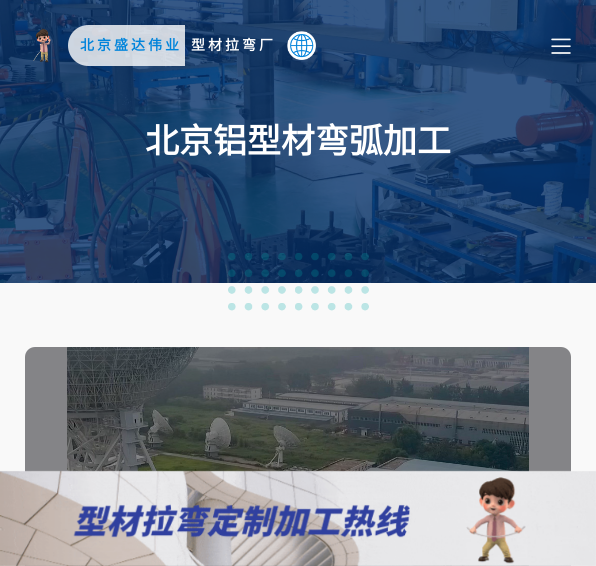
import math
import cairocffi as cairo

surface = cairo.ImageSurface(cairo.FORMAT_RGB24, 596, 566)
cr = cairo.Context(surface)
options = cairo.FontOptions()
options.set_hint_metrics(cairo.HINT_METRICS_OFF)
options.set_hint_style(cairo.HINT_STYLE_NONE)
cr.set_font_options(options)
cr.set_miter_limit(4)


def use_color(code):
    cr.set_source_rgb(*(v / 255 for v in bytes.fromhex(code[-6:])))


def spaced_text(x, y, s, letter, word):
    cr.move_to(x, y)
    for ch in s:
        cr.show_text(ch)
        cr.rel_move_to(letter + word * (ch == ' '), 0)


def round_rect(x, y, w, h, r):
    cr.new_sub_path()
    for i, (u, v) in enumerate([(x + w - r, y + h - r), (x + r, y + h - r), (x + r, y + r), (x + w - r, y + r)]):
        cr.arc(u, v, r, i * math.pi / 2, (i + 1) * math.pi / 2)
    cr.close_path()


def picture(path, x, y, w, h):
    cr.save()
    cr.set_source_surface(cairo.ImageSurface.create_from_png(path), x, y)
    cr.rectangle(x, y, w, h)
    cr.fill()
    cr.restore()


use_color("#f9f9f9")
cr.paint()
use_color("#022e68")
cr.rectangle(0, 0, 596, 283)
cr.fill()
picture("img4.png", 0, 0, 596, 283)
picture("img1.png", 33, 28, 18, 35)
cr.set_source_rgba(1, 1, 1, 0.8)
cr.new_path()
cr.move_to(88.5, 25)
cr.line_to(185, 25)
cr.line_to(185, 66)
cr.line_to(88.5, 66)
cr.curve_to(77, 66, 68, 57, 68, 45.5)
cr.curve_to(68, 34, 77, 25, 88.5, 25)
cr.close_path()
cr.fill()
cr.select_font_face("Noto Sans CJK SC", cairo.FONT_SLANT_NORMAL, cairo.FONT_WEIGHT_BOLD)
cr.set_font_size(14)
use_color("#0084db")
spaced_text(80, 50, "北京盛达伟业", 3, 0)
use_color("#ffffff")
spaced_text(191, 50, "型材拉弯厂", 3, 0)
picture("img2.png", 287, 31, 29, 29)
picture("img3.png", 551, 38, 20, 16)
cr.set_font_size(34)
cr.move_to(145, 153)
cr.show_text("北京铝型材弯弧加工")
picture("img5.png", 228, 253, 141, 58)
picture("img6.png", 67, 347, 462, 219)
cr.set_source_rgba(0.067, 0.067, 0.09, 0.5)
round_rect(25, 347, 546, 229, 10)
cr.fill()
picture("img7.png", 0, 470, 596, 96)
surface.write_to_png("result.png")
